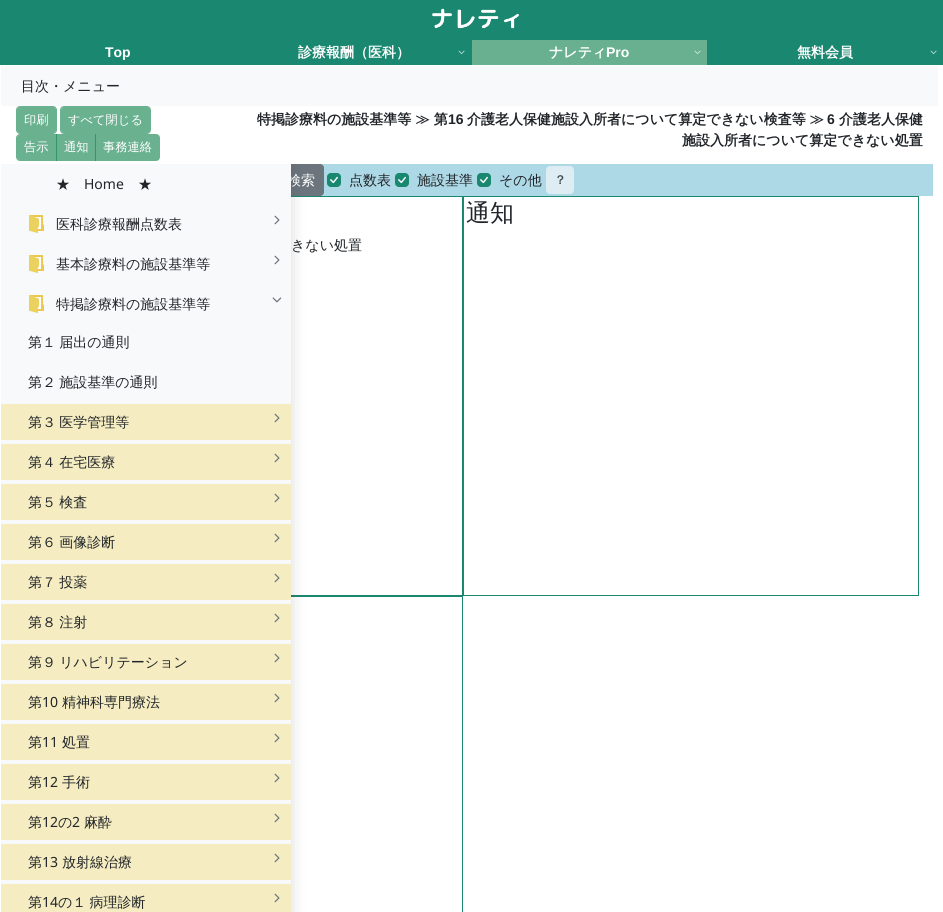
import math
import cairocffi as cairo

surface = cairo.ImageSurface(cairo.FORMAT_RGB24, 943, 912)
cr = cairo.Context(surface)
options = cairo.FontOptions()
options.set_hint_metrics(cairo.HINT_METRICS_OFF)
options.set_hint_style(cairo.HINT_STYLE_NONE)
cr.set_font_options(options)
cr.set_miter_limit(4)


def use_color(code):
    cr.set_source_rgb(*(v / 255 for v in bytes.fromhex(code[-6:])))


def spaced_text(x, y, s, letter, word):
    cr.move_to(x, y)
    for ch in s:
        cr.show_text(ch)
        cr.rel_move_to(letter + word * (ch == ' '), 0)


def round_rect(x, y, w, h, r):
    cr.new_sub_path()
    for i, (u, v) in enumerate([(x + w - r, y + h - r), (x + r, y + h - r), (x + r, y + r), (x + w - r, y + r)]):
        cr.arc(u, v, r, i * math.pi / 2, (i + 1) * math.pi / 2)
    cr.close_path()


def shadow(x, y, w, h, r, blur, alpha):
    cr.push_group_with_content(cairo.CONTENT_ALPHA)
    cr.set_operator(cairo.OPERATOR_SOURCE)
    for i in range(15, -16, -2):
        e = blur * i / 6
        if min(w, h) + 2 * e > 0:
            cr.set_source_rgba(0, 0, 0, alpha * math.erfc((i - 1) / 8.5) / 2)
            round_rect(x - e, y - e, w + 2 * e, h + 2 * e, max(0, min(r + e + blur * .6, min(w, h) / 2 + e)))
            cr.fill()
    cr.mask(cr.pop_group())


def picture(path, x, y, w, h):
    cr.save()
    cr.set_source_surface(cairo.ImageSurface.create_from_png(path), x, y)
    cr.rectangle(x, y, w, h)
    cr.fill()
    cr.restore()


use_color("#ffffff")
cr.paint()
use_color("#1a8870")
cr.rectangle(0, 0, 943, 65)
cr.fill()
picture("img1.png", 432, 8, 87, 21)
cr.select_font_face("Liberation Sans", cairo.FONT_SLANT_NORMAL, cairo.FONT_WEIGHT_BOLD)
cr.set_font_size(14)
use_color("#ffffff")
cr.move_to(105, 57)
cr.show_text("Top")
cr.select_font_face("WenQuanYi Zen Hei", cairo.FONT_SLANT_NORMAL, cairo.FONT_WEIGHT_BOLD)
cr.move_to(298, 57)
cr.show_text("診療報酬（医科）")
picture("img2.png", 458, 50, 7, 5)
use_color("#68b08f")
cr.rectangle(472, 40, 235, 25)
cr.fill()
use_color("#ffffff")
cr.move_to(549, 57)
cr.show_text("ナレティ")
cr.select_font_face("Liberation Sans", cairo.FONT_SLANT_NORMAL, cairo.FONT_WEIGHT_BOLD)
cr.move_to(606, 57)
cr.show_text("Pro")
picture("img3.png", 694, 50, 7, 5)
cr.select_font_face("WenQuanYi Zen Hei", cairo.FONT_SLANT_NORMAL, cairo.FONT_WEIGHT_BOLD)
cr.move_to(797, 57)
cr.show_text("無料会員")
picture("img2.png", 930, 50, 7, 5)
use_color("#f8f9fa")
cr.rectangle(1, 66, 937, 40)
cr.fill()
cr.select_font_face("WenQuanYi Zen Hei Medium")
use_color("#212529")
cr.move_to(21, 91)
cr.show_text("目次・メニュー")
use_color("#6ab190")
round_rect(17, 107, 39, 26, 2.5)
cr.fill()
round_rect(16.5, 106.5, 40, 27, 3.5)
cr.set_line_width(1)
cr.stroke()
cr.set_font_size(12.25)
use_color("#ffffff")
cr.move_to(24, 124)
cr.show_text("印刷")
use_color("#6ab190")
round_rect(61, 107, 89, 26, 2.5)
cr.fill()
round_rect(60.5, 106.5, 90, 27, 3.5)
cr.stroke()
use_color("#ffffff")
cr.move_to(68, 124)
cr.show_text("すべて閉じる")
use_color("#6ab190")
cr.new_path()
cr.move_to(19.5, 135)
cr.line_to(56, 135)
cr.line_to(56, 160)
cr.line_to(19.5, 160)
cr.curve_to(18, 160, 17, 159, 17, 157.5)
cr.line_to(17, 137.5)
cr.curve_to(17, 136, 18, 135, 19.5, 135)
cr.close_path()
cr.fill()
cr.new_path()
cr.move_to(20, 134.5)
cr.line_to(56.5, 134.5)
cr.line_to(56.5, 160.5)
cr.line_to(20, 160.5)
cr.curve_to(18, 160.5, 16.5, 159, 16.5, 157)
cr.line_to(16.5, 138)
cr.curve_to(16.5, 136, 18, 134.5, 20, 134.5)
cr.close_path()
cr.stroke()
use_color("#ffffff")
cr.move_to(24, 151)
cr.show_text("告示")
use_color("#6ab190")
cr.rectangle(57, 135, 38, 25)
cr.fill()
cr.rectangle(56.5, 134.5, 39, 26)
cr.set_source_rgba(0.098, 0.529, 0.329, 0.65)
cr.stroke()
use_color("#ffffff")
cr.move_to(64, 151)
cr.show_text("通知")
use_color("#6ab190")
cr.new_path()
cr.move_to(96, 135)
cr.line_to(156.5, 135)
cr.curve_to(158, 135, 159, 136, 159, 137.5)
cr.line_to(159, 157.5)
cr.curve_to(159, 159, 158, 160, 156.5, 160)
cr.line_to(96, 160)
cr.close_path()
cr.fill()
cr.new_path()
cr.move_to(95.5, 134.5)
cr.line_to(156, 134.5)
cr.curve_to(158, 134.5, 159.5, 136, 159.5, 138)
cr.line_to(159.5, 157)
cr.curve_to(159.5, 159, 158, 160.5, 156, 160.5)
cr.line_to(95.5, 160.5)
cr.close_path()
cr.set_source_rgba(0.098, 0.529, 0.329, 0.65)
cr.stroke()
use_color("#ffffff")
cr.move_to(103, 151)
cr.show_text("事務連絡")
cr.select_font_face("WenQuanYi Zen Hei", cairo.FONT_SLANT_NORMAL, cairo.FONT_WEIGHT_BOLD)
cr.set_font_size(14)
use_color("#212529")
cr.move_to(257, 124)
cr.show_text("特掲診療料の施設基準等 ≫ 第")
cr.select_font_face("Liberation Sans", cairo.FONT_SLANT_NORMAL, cairo.FONT_WEIGHT_BOLD)
cr.move_to(448, 124)
cr.show_text("16")
cr.select_font_face("WenQuanYi Zen Hei", cairo.FONT_SLANT_NORMAL, cairo.FONT_WEIGHT_BOLD)
cr.move_to(467, 124)
cr.show_text("介護老人保健施設入所者について算定できない検査等 ≫")
cr.select_font_face("Liberation Sans", cairo.FONT_SLANT_NORMAL, cairo.FONT_WEIGHT_BOLD)
cr.move_to(827, 124)
cr.show_text("6")
cr.select_font_face("WenQuanYi Zen Hei", cairo.FONT_SLANT_NORMAL, cairo.FONT_WEIGHT_BOLD)
cr.move_to(839, 124)
cr.show_text("介護老人保健")
cr.move_to(682, 145)
cr.show_text("施設入所者について算定できない処置")
use_color("#add8e6")
cr.rectangle(320, 164, 613, 32)
cr.fill()
use_color("#6c757d")
round_rect(278.5, 164.5, 45, 31, 3.5)
cr.fill_preserve()
cr.stroke()
cr.rectangle(6.5, 196.5, 456, 399)
use_color("#1a8870")
cr.stroke()
cr.rectangle(6.5, 596.5, 456, 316)
cr.stroke()
cr.save()
cr.rectangle(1, 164, 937, 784)
cr.clip()
use_color("#000000")
shadow(1, 165, 290, 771, 0, 8, 0.15)
cr.restore()
cr.select_font_face("WenQuanYi Zen Hei Medium")
use_color("#ffffff")
cr.move_to(287, 185)
cr.show_text("検索")
use_color("#f8f9fa")
cr.rectangle(1, 164, 290, 720)
cr.fill()
use_color("#212529")
cr.move_to(56, 189)
cr.show_text("★")
cr.select_font_face("Noto Sans")
cr.move_to(84, 189)
cr.show_text("Home")
cr.select_font_face("WenQuanYi Zen Hei Medium")
cr.move_to(138, 189)
cr.show_text("★")
picture("img4.png", 29, 215, 15, 18)
cr.move_to(56, 229)
cr.show_text("医科診療報酬点数表")
picture("img5.png", 274, 215, 6, 10)
picture("img4.png", 29, 255, 15, 18)
cr.move_to(56, 269)
cr.show_text("基本診療料の施設基準等")
picture("img5.png", 274, 255, 6, 10)
picture("img4.png", 29, 295, 15, 18)
cr.move_to(56, 309)
cr.show_text("特掲診療料の施設基準等")
picture("img6.png", 272, 297, 10, 6)
spaced_text(28, 347, "第１ 届出の通則", 0, -1)
spaced_text(28, 387, "第２ 施設基準の通則", 0, -1)
use_color("#f5ecc1")
cr.rectangle(1, 404, 290, 36)
cr.fill()
use_color("#212529")
spaced_text(28, 427, "第３ 医学管理等", 0, -1)
picture("img7.png", 274, 413, 6, 10)
use_color("#f5ecc1")
cr.rectangle(1, 444, 290, 36)
cr.fill()
use_color("#212529")
spaced_text(28, 467, "第４ 在宅医療", 0, -1)
picture("img7.png", 274, 453, 6, 10)
use_color("#f5ecc1")
cr.rectangle(1, 484, 290, 36)
cr.fill()
use_color("#212529")
spaced_text(28, 507, "第５ 検査", 0, -1)
picture("img7.png", 274, 493, 6, 10)
use_color("#f5ecc1")
cr.rectangle(1, 524, 290, 36)
cr.fill()
use_color("#212529")
spaced_text(28, 547, "第６ 画像診断", 0, -1)
picture("img7.png", 274, 533, 6, 10)
use_color("#f5ecc1")
cr.rectangle(1, 564, 290, 36)
cr.fill()
use_color("#212529")
spaced_text(28, 587, "第７ 投薬", 0, -1)
picture("img7.png", 274, 573, 6, 10)
use_color("#f5ecc1")
cr.rectangle(1, 604, 290, 36)
cr.fill()
use_color("#212529")
spaced_text(28, 627, "第８ 注射", 0, -1)
picture("img7.png", 274, 613, 6, 10)
use_color("#f5ecc1")
cr.rectangle(1, 644, 290, 36)
cr.fill()
use_color("#212529")
spaced_text(28, 667, "第９ リハビリテーション", 0, -1)
picture("img7.png", 274, 653, 6, 10)
use_color("#f5ecc1")
cr.rectangle(1, 684, 290, 36)
cr.fill()
use_color("#212529")
cr.move_to(28, 707)
cr.show_text("第")
cr.select_font_face("Noto Sans")
cr.move_to(42, 707)
cr.show_text("10")
cr.select_font_face("WenQuanYi Zen Hei Medium")
cr.move_to(62, 707)
cr.show_text("精神科専門療法")
picture("img7.png", 274, 693, 6, 10)
use_color("#f5ecc1")
cr.rectangle(1, 724, 290, 36)
cr.fill()
use_color("#212529")
cr.move_to(28, 747)
cr.show_text("第")
cr.select_font_face("Noto Sans")
cr.move_to(42, 747)
cr.show_text("11")
cr.select_font_face("WenQuanYi Zen Hei Medium")
cr.move_to(62, 747)
cr.show_text("処置")
picture("img7.png", 274, 733, 6, 10)
use_color("#f5ecc1")
cr.rectangle(1, 764, 290, 36)
cr.fill()
use_color("#212529")
cr.move_to(28, 787)
cr.show_text("第")
cr.select_font_face("Noto Sans")
cr.move_to(42, 787)
cr.show_text("12")
cr.select_font_face("WenQuanYi Zen Hei Medium")
cr.move_to(62, 787)
cr.show_text("手術")
picture("img7.png", 274, 773, 6, 10)
use_color("#f5ecc1")
cr.rectangle(1, 804, 290, 36)
cr.fill()
use_color("#212529")
cr.move_to(28, 827)
cr.show_text("第")
cr.select_font_face("Noto Sans")
cr.move_to(42, 827)
cr.show_text("12")
cr.select_font_face("WenQuanYi Zen Hei Medium")
cr.move_to(58, 827)
cr.show_text("の")
cr.select_font_face("Noto Sans")
cr.move_to(72, 827)
cr.show_text("2")
cr.select_font_face("WenQuanYi Zen Hei Medium")
cr.move_to(84, 827)
cr.show_text("麻酔")
picture("img7.png", 274, 813, 6, 10)
use_color("#f5ecc1")
cr.rectangle(1, 844, 290, 36)
cr.fill()
use_color("#212529")
cr.move_to(28, 867)
cr.show_text("第")
cr.select_font_face("Noto Sans")
cr.move_to(42, 867)
cr.show_text("13")
cr.select_font_face("WenQuanYi Zen Hei Medium")
cr.move_to(62, 867)
cr.show_text("放射線治療")
picture("img7.png", 274, 853, 6, 10)
use_color("#f5ecc1")
cr.rectangle(1, 884, 290, 28)
cr.fill()
use_color("#212529")
cr.move_to(28, 907)
cr.show_text("第")
cr.select_font_face("Noto Sans")
cr.move_to(42, 907)
cr.show_text("14")
cr.select_font_face("WenQuanYi Zen Hei Medium")
spaced_text(58, 907, "の１ 病理診断", 0, -1)
picture("img7.png", 274, 893, 6, 10)
use_color("#1a8870")
round_rect(327.5, 173.5, 13, 13, 3.5)
cr.fill_preserve()
cr.stroke()
picture("img8.png", 330, 176, 8, 8)
use_color("#212529")
cr.move_to(349, 185)
cr.show_text("点数表")
use_color("#1a8870")
round_rect(395.5, 173.5, 13, 13, 3.5)
cr.fill_preserve()
cr.stroke()
picture("img8.png", 398, 176, 8, 8)
use_color("#212529")
cr.move_to(417, 185)
cr.show_text("施設基準")
use_color("#1a8870")
round_rect(477.5, 173.5, 13, 13, 3.5)
cr.fill_preserve()
cr.stroke()
picture("img8.png", 480, 176, 8, 8)
use_color("#212529")
cr.move_to(499, 185)
cr.show_text("その他")
use_color("#deedf3")
round_rect(547, 167, 26, 26, 2.5)
cr.fill()
round_rect(546.5, 166.5, 27, 27, 3.5)
cr.stroke()
cr.select_font_face("WenQuanYi Zen Hei", cairo.FONT_SLANT_NORMAL, cairo.FONT_WEIGHT_BOLD)
cr.set_font_size(12.25)
use_color("#3d4c51")
cr.move_to(554, 184)
cr.show_text("？")
cr.rectangle(463.5, 196.5, 455, 399)
use_color("#1a8870")
cr.stroke()
cr.select_font_face("WenQuanYi Zen Hei Medium")
cr.set_font_size(24)
use_color("#212529")
cr.move_to(466, 221)
cr.show_text("通知")
cr.set_font_size(14)
cr.move_to(291, 250)
cr.show_text("きない処置")
surface.write_to_png("result.png")
